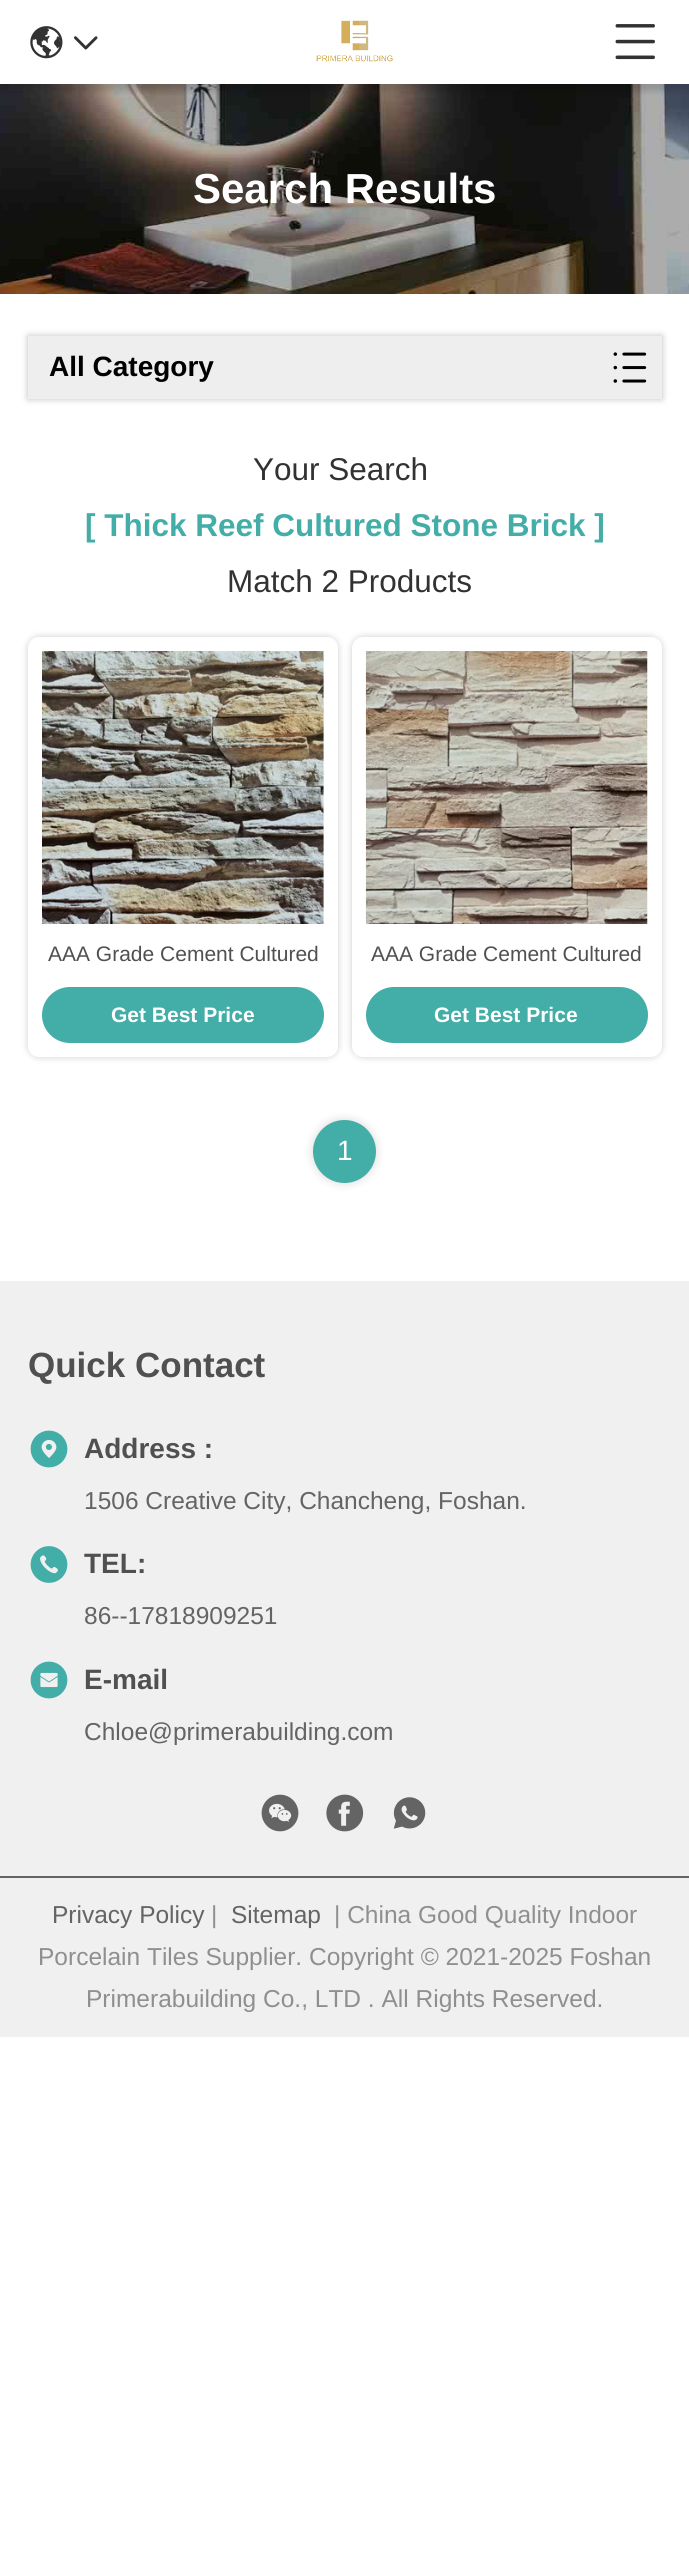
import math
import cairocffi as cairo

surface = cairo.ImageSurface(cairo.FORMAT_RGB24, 689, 2574)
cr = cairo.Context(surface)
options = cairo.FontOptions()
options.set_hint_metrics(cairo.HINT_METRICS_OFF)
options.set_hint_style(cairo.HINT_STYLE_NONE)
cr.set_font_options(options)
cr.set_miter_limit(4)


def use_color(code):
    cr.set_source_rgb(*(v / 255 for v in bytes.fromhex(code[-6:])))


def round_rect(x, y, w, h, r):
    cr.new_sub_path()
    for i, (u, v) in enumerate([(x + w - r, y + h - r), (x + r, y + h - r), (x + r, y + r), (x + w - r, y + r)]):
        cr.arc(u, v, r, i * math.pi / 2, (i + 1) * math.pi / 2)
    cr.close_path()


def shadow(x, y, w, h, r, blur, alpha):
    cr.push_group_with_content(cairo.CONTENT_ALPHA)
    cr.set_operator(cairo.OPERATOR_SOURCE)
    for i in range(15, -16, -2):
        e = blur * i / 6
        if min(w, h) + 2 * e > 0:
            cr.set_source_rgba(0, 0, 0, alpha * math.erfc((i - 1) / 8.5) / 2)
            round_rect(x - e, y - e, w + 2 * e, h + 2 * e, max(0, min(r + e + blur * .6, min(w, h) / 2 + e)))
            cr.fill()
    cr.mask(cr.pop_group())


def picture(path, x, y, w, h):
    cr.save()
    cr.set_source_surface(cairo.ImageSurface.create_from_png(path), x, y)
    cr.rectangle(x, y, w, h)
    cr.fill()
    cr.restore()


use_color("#ffffff")
cr.paint()
picture("img5.png", 0, 84, 689, 210)
cr.save()
cr.rectangle(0, 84, 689, 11)
cr.clip()
use_color("#000000")
shadow(0, 7, 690, 84, 0, 3.5, 0.15)
cr.restore()
picture("img1.png", 30, 26, 33, 33)
picture("img2.png", 74, 36, 24, 14)
picture("img3.png", 316, 20, 77, 42)
picture("img4.png", 615, 24, 40, 36)
cr.select_font_face("Liberation Sans", cairo.FONT_SLANT_NORMAL, cairo.FONT_WEIGHT_BOLD)
cr.set_font_size(42)
use_color("#ffffff")
cr.move_to(193, 203)
cr.show_text("Search Results")
use_color("#000000")
shadow(28, 336, 634, 63, 0, 3.5, 0.25)
use_color("#eeeeee")
cr.rectangle(28, 336, 634, 63)
cr.fill()
cr.set_font_size(28)
use_color("#000000")
cr.move_to(49, 376)
cr.show_text("All Category")
picture("img6.png", 613, 352, 34, 31)
cr.select_font_face("Liberation Sans")
cr.set_font_size(31.5)
use_color("#323232")
cr.move_to(253, 480)
cr.show_text("Your Search")
cr.select_font_face("Liberation Sans", cairo.FONT_SLANT_NORMAL, cairo.FONT_WEIGHT_BOLD)
use_color("#43ada7")
cr.move_to(85, 536)
cr.show_text("[ Thick Reef Cultured Stone Brick ]")
cr.select_font_face("Liberation Sans")
use_color("#323232")
cr.move_to(227, 592)
cr.show_text("Match 2 Products")
use_color("#000000")
shadow(28, 637, 310, 420, 11, 3.5, 0.2)
use_color("#ffffff")
round_rect(28, 637, 310, 420, 11)
cr.fill()
picture("img7.png", 42, 651, 282, 273)
cr.set_font_size(21)
use_color("#505050")
cr.move_to(48, 961)
cr.show_text("AAA Grade Cement Cultured")
use_color("#43ada7")
round_rect(44, 989, 278, 52, 26)
cr.fill_preserve()
cr.set_line_width(4)
cr.stroke()
cr.select_font_face("Liberation Sans", cairo.FONT_SLANT_NORMAL, cairo.FONT_WEIGHT_BOLD)
use_color("#ffffff")
cr.move_to(111, 1022)
cr.show_text("Get Best Price")
use_color("#000000")
shadow(352, 637, 310, 420, 11, 3.5, 0.2)
use_color("#ffffff")
round_rect(352, 637, 310, 420, 11)
cr.fill()
picture("img8.png", 365, 651, 283, 273)
cr.select_font_face("Liberation Sans")
use_color("#505050")
cr.move_to(371, 961)
cr.show_text("AAA Grade Cement Cultured")
use_color("#43ada7")
round_rect(368, 989, 278, 52, 26)
cr.fill_preserve()
cr.stroke()
cr.select_font_face("Liberation Sans", cairo.FONT_SLANT_NORMAL, cairo.FONT_WEIGHT_BOLD)
use_color("#ffffff")
cr.move_to(434, 1022)
cr.show_text("Get Best Price")
use_color("#000000")
shadow(313, 1120, 63, 63, 31.5, 5, 0.15)
use_color("#43ada7")
cr.arc(344.5, 1151.5, 31.5, 0, 2 * math.pi)
cr.fill()
cr.select_font_face("Liberation Sans")
cr.set_font_size(28)
use_color("#ffffff")
cr.move_to(337, 1160)
cr.show_text("1")
use_color("#f0f0f0")
cr.rectangle(0, 1281, 689, 756)
cr.fill()
cr.select_font_face("Liberation Sans", cairo.FONT_SLANT_NORMAL, cairo.FONT_WEIGHT_BOLD)
cr.set_font_size(35)
use_color("#505050")
cr.move_to(28, 1377)
cr.show_text("Quick Contact")
picture("img9.png", 30, 1430, 38, 38)
cr.set_font_size(28)
cr.move_to(84, 1458)
cr.show_text("Address :")
cr.select_font_face("Liberation Sans")
cr.set_font_size(24.5)
use_color("#646464")
cr.move_to(84, 1509)
cr.show_text("1506 Creative City, Chancheng, Foshan.")
picture("img10.png", 30, 1546, 38, 37)
cr.select_font_face("Liberation Sans", cairo.FONT_SLANT_NORMAL, cairo.FONT_WEIGHT_BOLD)
cr.set_font_size(28)
use_color("#505050")
cr.move_to(84, 1573)
cr.show_text("TEL:")
cr.select_font_face("Liberation Sans")
cr.set_font_size(24.5)
use_color("#646464")
cr.move_to(84, 1624)
cr.show_text("86--17818909251")
picture("img11.png", 30, 1661, 38, 38)
cr.select_font_face("Liberation Sans", cairo.FONT_SLANT_NORMAL, cairo.FONT_WEIGHT_BOLD)
cr.set_font_size(28)
use_color("#505050")
cr.move_to(84, 1689)
cr.show_text("E-mail")
cr.select_font_face("Liberation Sans")
cr.set_font_size(24.5)
use_color("#646464")
cr.move_to(84, 1740)
cr.show_text("Chloe@primerabuilding.com")
picture("img12.png", 261, 1794, 38, 38)
picture("img13.png", 326, 1794, 38, 38)
picture("img14.png", 393, 1797, 33, 32)
cr.rectangle(0, 1876, 689, 2)
cr.fill()
cr.move_to(52, 1923)
cr.show_text("Privacy Policy")
use_color("#8f8f8f")
cr.move_to(211, 1923)
cr.show_text("|")
use_color("#646464")
cr.move_to(231, 1923)
cr.show_text("Sitemap")
use_color("#8f8f8f")
cr.move_to(334, 1923)
cr.show_text("| China Good Quality Indoor")
cr.move_to(38, 1965)
cr.show_text("Porcelain Tiles Supplier. Copyright © 2021-2025 Foshan")
cr.move_to(86, 2007)
cr.show_text("Primerabuilding Co., LTD . All Rights Reserved.")
surface.write_to_png("result.png")
